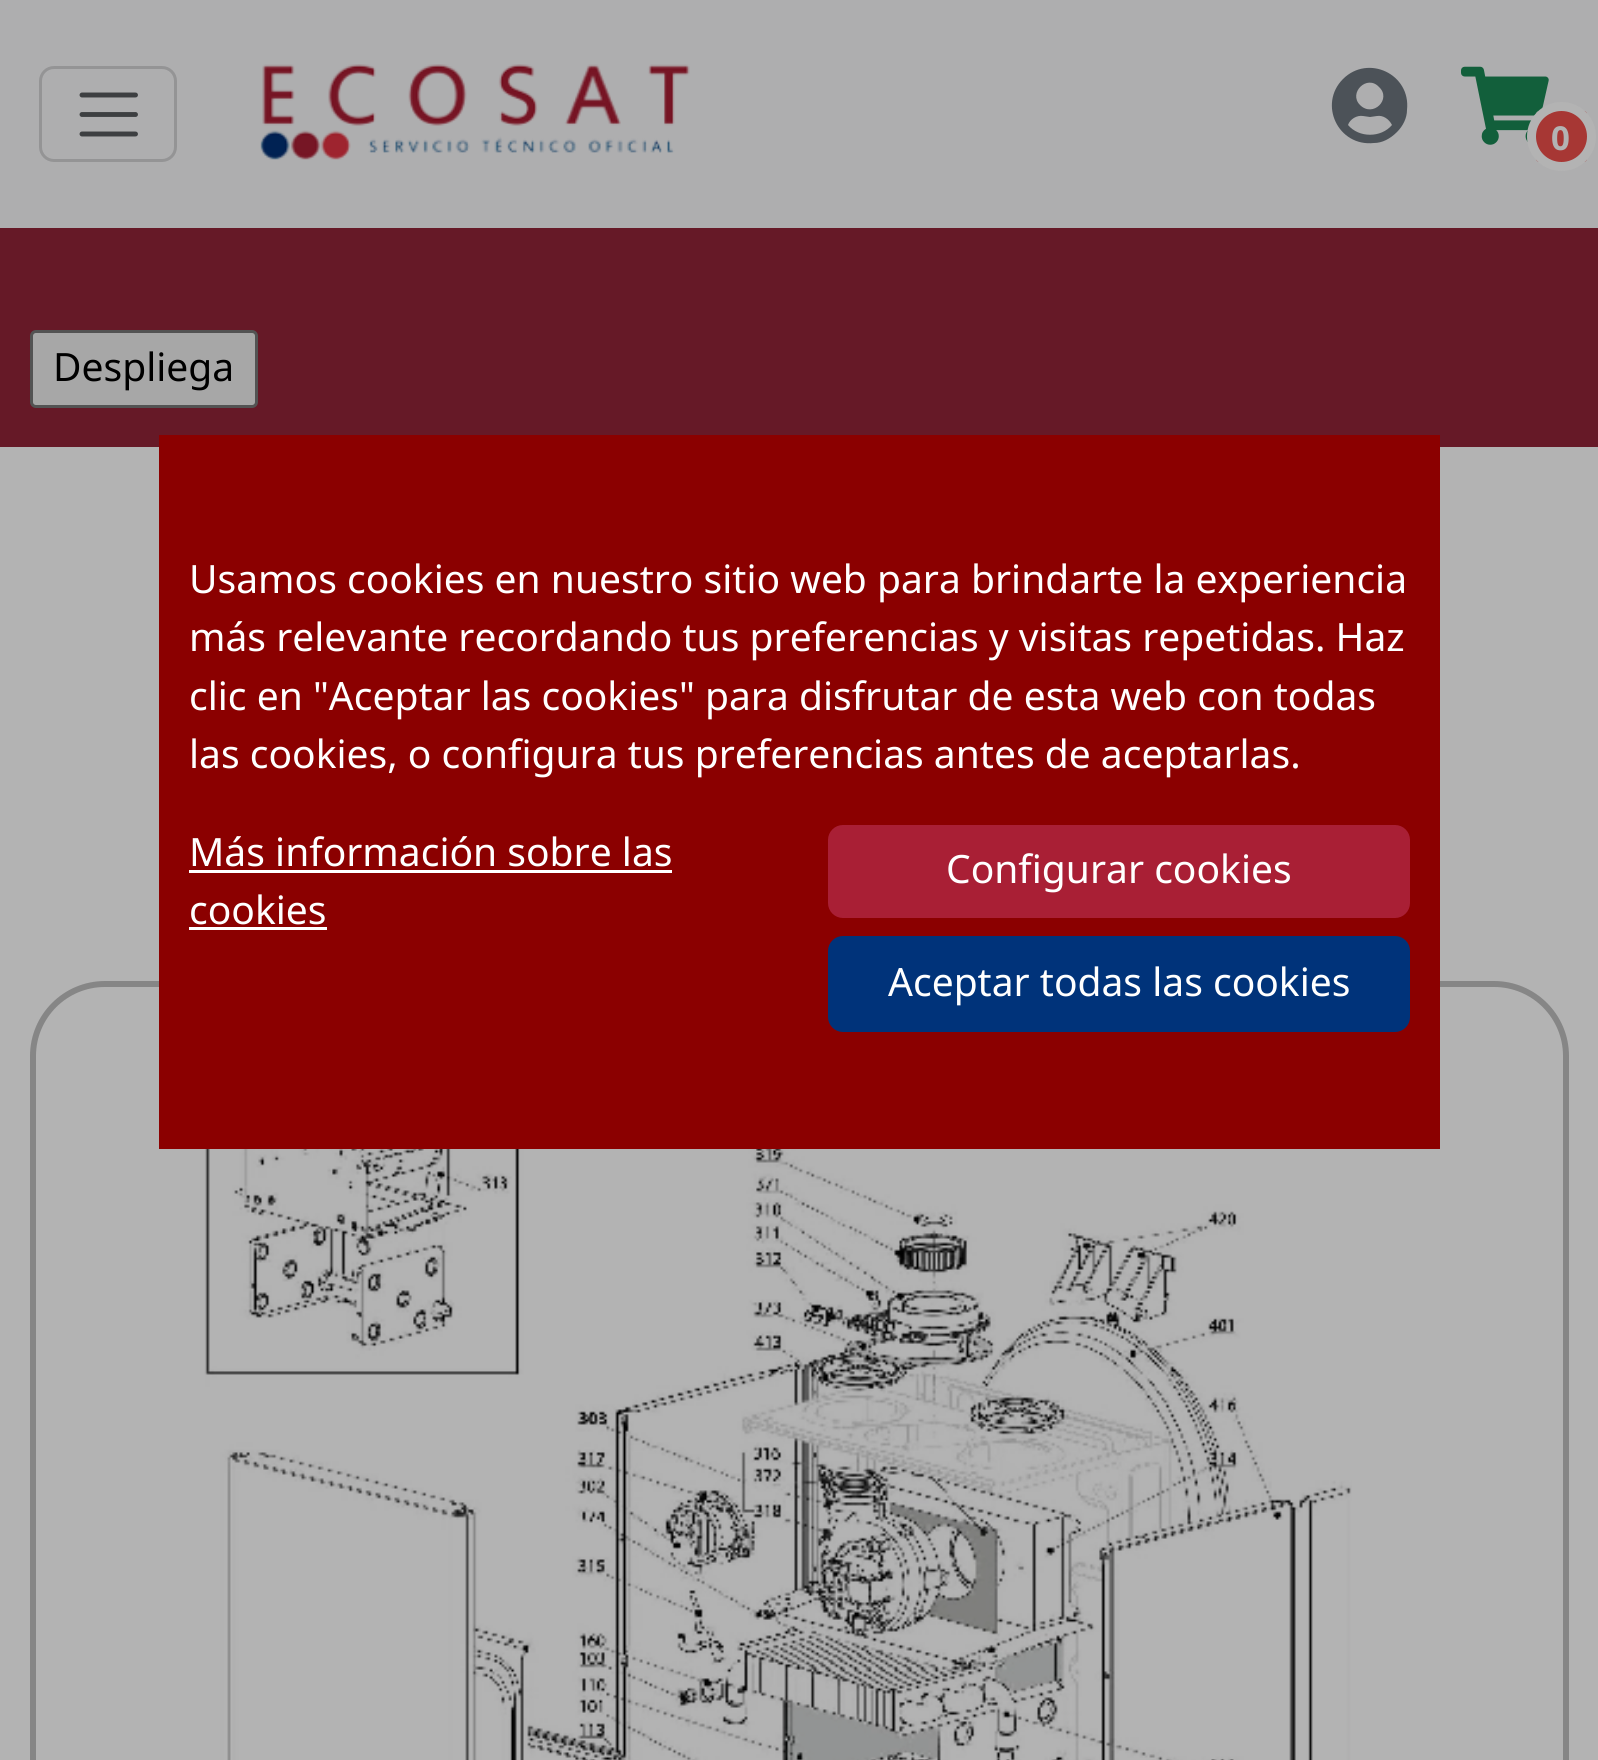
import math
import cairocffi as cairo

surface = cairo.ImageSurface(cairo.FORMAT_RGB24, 1598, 1760)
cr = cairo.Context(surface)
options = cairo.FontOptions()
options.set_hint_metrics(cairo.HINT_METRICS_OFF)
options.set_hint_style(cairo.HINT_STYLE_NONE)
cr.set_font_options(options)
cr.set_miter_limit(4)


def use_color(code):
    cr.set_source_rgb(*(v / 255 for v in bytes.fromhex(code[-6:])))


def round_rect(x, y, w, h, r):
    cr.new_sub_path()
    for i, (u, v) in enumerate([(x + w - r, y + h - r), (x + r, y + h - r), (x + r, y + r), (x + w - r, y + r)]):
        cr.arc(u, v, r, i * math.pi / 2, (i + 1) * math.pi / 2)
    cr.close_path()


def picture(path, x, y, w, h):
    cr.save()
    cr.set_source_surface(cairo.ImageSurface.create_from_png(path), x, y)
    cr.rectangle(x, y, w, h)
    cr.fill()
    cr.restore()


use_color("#b3b3b3")
cr.paint()
use_color("#aeaeaf")
cr.rectangle(0, 0, 1598, 228)
cr.fill()
round_rect(40.5, 67.5, 135, 93, 13.5)
use_color("#949495")
cr.set_line_width(3)
cr.stroke()
cr.new_path()
cr.move_to(82, 95)
cr.line_to(135.5, 95)
cr.move_to(82, 114.5)
cr.line_to(135.5, 114.5)
cr.move_to(82, 134)
cr.line_to(135.5, 134)
use_color("#3d3f41")
cr.set_line_width(4.9)
cr.set_line_cap(cairo.LINE_CAP_ROUND)
cr.stroke()
picture("img1.png", 260, 64, 430, 96)
use_color("#4c5258")
cr.new_path()
cr.move_to(1343, 79)
cr.curve_to(1368, 54, 1411, 74, 1407, 110)
cr.curve_to(1407, 118, 1403, 126, 1397, 132)
cr.curve_to(1390, 139, 1382, 143, 1374, 143)
cr.curve_to(1338, 147, 1318, 104, 1343, 79)
cr.close_path()
cr.move_to(1379, 87)
cr.curve_to(1367, 74, 1348, 93, 1360, 105)
cr.curve_to(1373, 118, 1392, 99, 1379, 87)
cr.close_path()
cr.move_to(1348, 125)
cr.curve_to(1359, 138, 1381, 138, 1392, 125)
cr.curve_to(1389, 119, 1383, 115, 1377, 116)
cr.line_to(1370, 117)
cr.line_to(1363, 116)
cr.curve_to(1357, 115, 1350, 119, 1348, 125)
cr.close_path()
cr.fill()
picture("img2.png", 1461, 66, 88, 79)
cr.save()
round_rect(1527, 102, 69, 69, 34.5)
cr.clip()
gradient = cairo.RadialGradient(1562, 137, 0, 1562, 137, 36)
gradient.add_color_stop_rgba(0.01, 0.655, 0.216, 0.204, 1)
gradient.add_color_stop_rgba(0.98, 0.655, 0.216, 0.204, 1)
gradient.add_color_stop_rgba(0.98, 0.702, 0.702, 0.702, 1)
cr.set_source(gradient)
cr.rectangle(1536, 111, 51, 51)
cr.fill()
cr.restore()
cr.arc(1561.5, 136.5, 30, 0, 2 * math.pi)
use_color("#b3b3b3")
cr.set_line_width(9)
cr.set_line_cap(cairo.LINE_CAP_BUTT)
cr.stroke()
cr.select_font_face("Noto Sans", cairo.FONT_SLANT_NORMAL, cairo.FONT_WEIGHT_BOLD)
cr.set_font_size(33)
cr.move_to(1551, 150)
cr.show_text("0")
use_color("#661927")
cr.rectangle(0, 228, 1598, 219)
cr.fill()
use_color("#a7a7a7")
round_rect(31.5, 331.5, 225, 75, 4.5)
cr.fill_preserve()
use_color("#535353")
cr.set_line_width(3)
cr.stroke()
cr.select_font_face("Noto Sans")
cr.set_font_size(39)
use_color("#000000")
cr.move_to(53, 381)
cr.show_text("Despliega")
round_rect(33, 984, 1533, 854, 72)
use_color("#868686")
cr.set_line_width(6)
cr.stroke()
use_color("#8b0000")
cr.rectangle(159, 435, 1281, 714)
cr.fill()
use_color("#ffffff")
cr.move_to(189, 593)
cr.show_text("Usamos cookies en nuestro sitio web para brindarte la experiencia")
cr.move_to(189, 651)
cr.show_text("más relevante recordando tus preferencias y visitas repetidas. Haz")
cr.move_to(189, 710)
cr.show_text("clic en \"Aceptar las cookies\" para disfrutar de esta web con todas")
cr.move_to(189, 768)
cr.show_text("las cookies, o configura tus preferencias antes de aceptarlas.")
cr.move_to(189, 866)
cr.show_text("Más información sobre las")
cr.rectangle(189, 870, 483, 3)
cr.fill()
cr.move_to(189, 924)
cr.show_text("cookies")
cr.rectangle(189, 927, 138, 3)
cr.fill()
use_color("#a91f35")
round_rect(829.5, 826.5, 579, 90, 13.5)
cr.fill_preserve()
cr.set_line_width(3)
cr.stroke()
use_color("#ffffff")
cr.move_to(946, 883)
cr.show_text("Configurar cookies")
use_color("#00337a")
round_rect(829.5, 937.5, 579, 93, 13.5)
cr.fill_preserve()
cr.stroke()
use_color("#ffffff")
cr.move_to(888, 996)
cr.show_text("Aceptar todas las cookies")
picture("img3.png", 204, 1149, 1148, 611)
surface.write_to_png("result.png")
